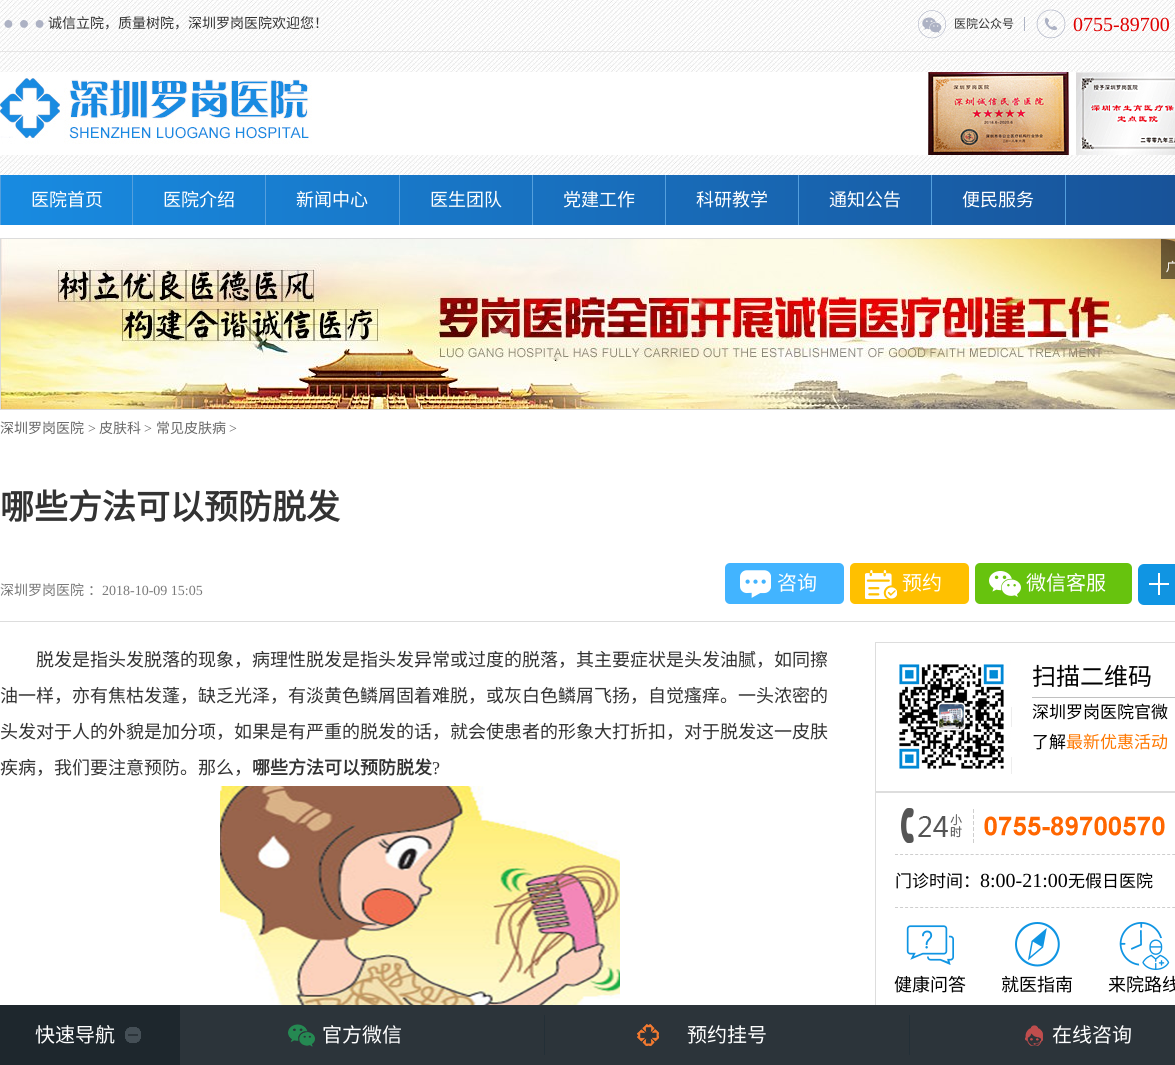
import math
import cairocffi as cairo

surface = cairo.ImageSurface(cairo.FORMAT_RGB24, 1175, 1065)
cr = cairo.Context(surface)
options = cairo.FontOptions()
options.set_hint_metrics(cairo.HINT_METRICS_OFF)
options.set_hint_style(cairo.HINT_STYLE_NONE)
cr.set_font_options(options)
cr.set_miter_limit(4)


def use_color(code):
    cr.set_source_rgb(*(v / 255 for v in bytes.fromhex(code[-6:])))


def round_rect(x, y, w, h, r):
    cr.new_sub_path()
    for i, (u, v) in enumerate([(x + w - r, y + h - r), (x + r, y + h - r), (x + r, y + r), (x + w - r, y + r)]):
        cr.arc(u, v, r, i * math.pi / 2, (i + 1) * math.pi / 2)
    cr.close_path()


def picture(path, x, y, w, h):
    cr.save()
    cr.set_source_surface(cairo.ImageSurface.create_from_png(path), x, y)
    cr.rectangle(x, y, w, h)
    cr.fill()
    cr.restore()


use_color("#ffffff")
cr.paint()
picture("img1.png", 0, 0, 1175, 175)
picture("img2.png", 4, 20, 40, 8)
cr.select_font_face("Noto Sans CJK SC")
cr.set_font_size(14)
use_color("#333333")
cr.move_to(48, 28)
cr.show_text("诚信立院，质量树院，深圳罗岗医院欢迎您！")
picture("img3.png", 918, 10, 28, 29)
cr.set_font_size(12)
cr.move_to(954, 28)
cr.show_text("医院公众号")
use_color("#adb3c4")
cr.rectangle(1024, 17, 1, 14)
cr.fill()
picture("img4.png", 1036, 9, 30, 30)
cr.select_font_face("Liberation Serif")
cr.set_font_size(20)
use_color("#df0000")
cr.move_to(1073, 31)
cr.show_text("0755-89700")
use_color("#e6e5e5")
cr.rectangle(0, 51, 1175, 1)
cr.fill()
picture("img5.png", 0, 72, 1175, 83)
gradient = cairo.LinearGradient(0, 200, 1175, 200)
gradient.add_color_stop_rgba(0, 0.094, 0.545, 0.882, 1)
gradient.add_color_stop_rgba(1, 0.094, 0.325, 0.6, 1)
cr.set_source(gradient)
cr.rectangle(1, 175, 1174, 50)
cr.fill()
use_color("#549fdd")
cr.rectangle(132, 175, 1, 50)
cr.fill()
cr.rectangle(0, 175, 1, 50)
cr.fill()
cr.select_font_face("Noto Sans CJK SC")
cr.set_font_size(18)
use_color("#ffffff")
cr.move_to(31, 206)
cr.show_text("医院首页")
use_color("#549fdd")
cr.rectangle(265, 175, 1, 50)
cr.fill()
use_color("#ffffff")
cr.move_to(163, 206)
cr.show_text("医院介绍")
use_color("#549fdd")
cr.rectangle(399, 175, 1, 50)
cr.fill()
use_color("#ffffff")
cr.move_to(296, 206)
cr.show_text("新闻中心")
use_color("#549fdd")
cr.rectangle(532, 175, 1, 50)
cr.fill()
use_color("#ffffff")
cr.move_to(430, 206)
cr.show_text("医生团队")
use_color("#549fdd")
cr.rectangle(665, 175, 1, 50)
cr.fill()
use_color("#ffffff")
cr.move_to(563, 206)
cr.show_text("党建工作")
use_color("#549fdd")
cr.rectangle(798, 175, 1, 50)
cr.fill()
use_color("#ffffff")
cr.move_to(696, 206)
cr.show_text("科研教学")
use_color("#549fdd")
cr.rectangle(931, 175, 1, 50)
cr.fill()
use_color("#ffffff")
cr.move_to(829, 206)
cr.show_text("通知公告")
use_color("#549fdd")
cr.rectangle(1065, 175, 1, 50)
cr.fill()
use_color("#ffffff")
cr.move_to(962, 206)
cr.show_text("便民服务")
use_color("#dddddd")
cr.rectangle(0, 621, 1175, 1)
cr.fill()
cr.rectangle(0.5, 238.5, 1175, 171)
use_color("#dcdcdc")
cr.set_line_width(1)
cr.stroke()
picture("img6.png", 1, 239, 1174, 170)
picture("img7.png", 1161, 239, 14, 40)
cr.set_font_size(14)
use_color("#686868")
cr.move_to(0, 433)
cr.show_text("深圳罗岗医院")
cr.select_font_face("Liberation Serif")
cr.move_to(88, 433)
cr.show_text(">")
cr.select_font_face("Noto Sans CJK SC")
cr.move_to(99, 433)
cr.show_text("皮肤科")
cr.select_font_face("Liberation Serif")
cr.move_to(144, 433)
cr.show_text(">")
cr.select_font_face("Noto Sans CJK SC")
cr.move_to(156, 433)
cr.show_text("常见皮肤病")
cr.select_font_face("Liberation Serif")
cr.move_to(229, 433)
cr.show_text(">")
cr.select_font_face("Noto Sans CJK SC", cairo.FONT_SLANT_NORMAL, cairo.FONT_WEIGHT_BOLD)
cr.set_font_size(34)
use_color("#333333")
cr.move_to(0, 519)
cr.show_text("哪些方法可以预防脱发")
cr.select_font_face("Noto Sans CJK SC")
cr.set_font_size(14)
use_color("#797979")
cr.move_to(0, 595)
cr.show_text("深圳罗岗医院")
cr.move_to(88, 595)
cr.show_text("：")
cr.select_font_face("Liberation Serif")
cr.move_to(102, 595)
cr.show_text("2018-10-09 15:05")
use_color("#42b4ff")
round_rect(725, 563, 119, 41, 5)
cr.fill()
picture("img8.png", 740, 570, 31, 28)
cr.select_font_face("Noto Sans CJK SC")
cr.set_font_size(20)
use_color("#ffffff")
cr.move_to(777, 590)
cr.show_text("咨询")
use_color("#ffc000")
round_rect(850, 563, 119, 41, 5)
cr.fill()
picture("img9.png", 865, 570, 32, 29)
use_color("#ffffff")
cr.move_to(902, 590)
cr.show_text("预约")
use_color("#67c30e")
round_rect(975, 563, 157, 41, 5)
cr.fill()
picture("img10.png", 989, 571, 32, 26)
use_color("#ffffff")
cr.move_to(1026, 590)
cr.show_text("微信客服")
picture("img11.png", 1138, 564, 37, 41)
cr.set_font_size(18)
use_color("#333333")
cr.move_to(36, 666)
cr.show_text("脱发是指头发脱落的现象，病理性脱发是指头发异常或过度的脱落，其主要症状是头发油腻，如同擦")
cr.move_to(0, 702)
cr.show_text("油一样，亦有焦枯发蓬，缺乏光泽，有淡黄色鳞屑固着难脱，或灰白色鳞屑飞扬，自觉瘙痒。一头浓密的")
cr.move_to(0, 738)
cr.show_text("头发对于人的外貌是加分项，如果是有严重的脱发的话，就会使患者的形象大打折扣，对于脱发这一皮肤")
cr.move_to(0, 774)
cr.show_text("疾病，我们要注意预防。那么，")
cr.select_font_face("Noto Sans CJK SC", cairo.FONT_SLANT_NORMAL, cairo.FONT_WEIGHT_BOLD)
cr.move_to(252, 774)
cr.show_text("哪些方法可以预防脱发")
cr.select_font_face("Liberation Serif")
cr.move_to(432, 774)
cr.show_text("?")
picture("img12.png", 220, 786, 400, 219)
cr.rectangle(875.5, 642.5, 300, 149)
use_color("#dddddd")
cr.stroke()
picture("img13.png", 899, 660, 113, 114)
use_color("#c0c0c0")
cr.rectangle(1032, 697, 143, 1)
cr.fill()
cr.select_font_face("Noto Sans CJK SC")
cr.set_font_size(24)
use_color("#000000")
cr.move_to(1032, 685)
cr.show_text("扫描二维码")
cr.set_font_size(17)
cr.move_to(1032, 718)
cr.show_text("深圳罗岗医院官微")
cr.move_to(1032, 748)
cr.show_text("了解")
use_color("#ff7800")
cr.move_to(1066, 748)
cr.show_text("最新优惠活动")
cr.rectangle(875.5, 792.5, 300, 221)
use_color("#dddddd")
cr.stroke()
picture("img14.png", 901, 808, 264, 35)
cr.new_path()
cr.move_to(895, 854.5)
cr.line_to(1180, 854.5)
use_color("#cecece")
cr.set_dash([3, 2.04])
cr.stroke()
cr.new_path()
cr.move_to(895, 907.5)
cr.line_to(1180, 907.5)
cr.stroke()
use_color("#000000")
cr.move_to(895, 887)
cr.show_text("门诊时间：")
cr.select_font_face("Liberation Serif")
cr.set_font_size(20)
cr.move_to(980, 887)
cr.show_text("8:00-21:00")
cr.select_font_face("Noto Sans CJK SC")
cr.set_font_size(17)
cr.move_to(1068, 887)
cr.show_text("无假日医院")
picture("img15.png", 906, 925, 48, 40)
cr.set_font_size(18)
cr.move_to(894, 991)
cr.show_text("健康问答")
picture("img16.png", 1015, 922, 45, 45)
cr.move_to(1001, 991)
cr.show_text("就医指南")
picture("img17.png", 1119, 922, 51, 48)
cr.move_to(1108, 991)
cr.show_text("来院路线")
use_color("#2c343a")
cr.rectangle(180, 1005, 995, 60)
cr.fill()
use_color("#1e272d")
cr.rectangle(0, 1005, 180, 60)
cr.fill()
picture("img18.png", 125, 1027, 16, 16)
cr.set_font_size(20)
use_color("#ffffff")
cr.move_to(35, 1042)
cr.show_text("快速导航")
picture("img19.png", 288, 1024, 27, 23)
use_color("#232f37")
cr.rectangle(544, 1015, 1, 40)
cr.fill()
use_color("#ffffff")
cr.move_to(322, 1042)
cr.show_text("官方微信")
picture("img20.png", 637, 1024, 22, 22)
use_color("#232f37")
cr.rectangle(909, 1015, 1, 40)
cr.fill()
use_color("#ffffff")
cr.move_to(687, 1042)
cr.show_text("预约挂号")
picture("img21.png", 1025, 1025, 18, 21)
cr.move_to(1052, 1042)
cr.show_text("在线咨询")
surface.write_to_png("result.png")
